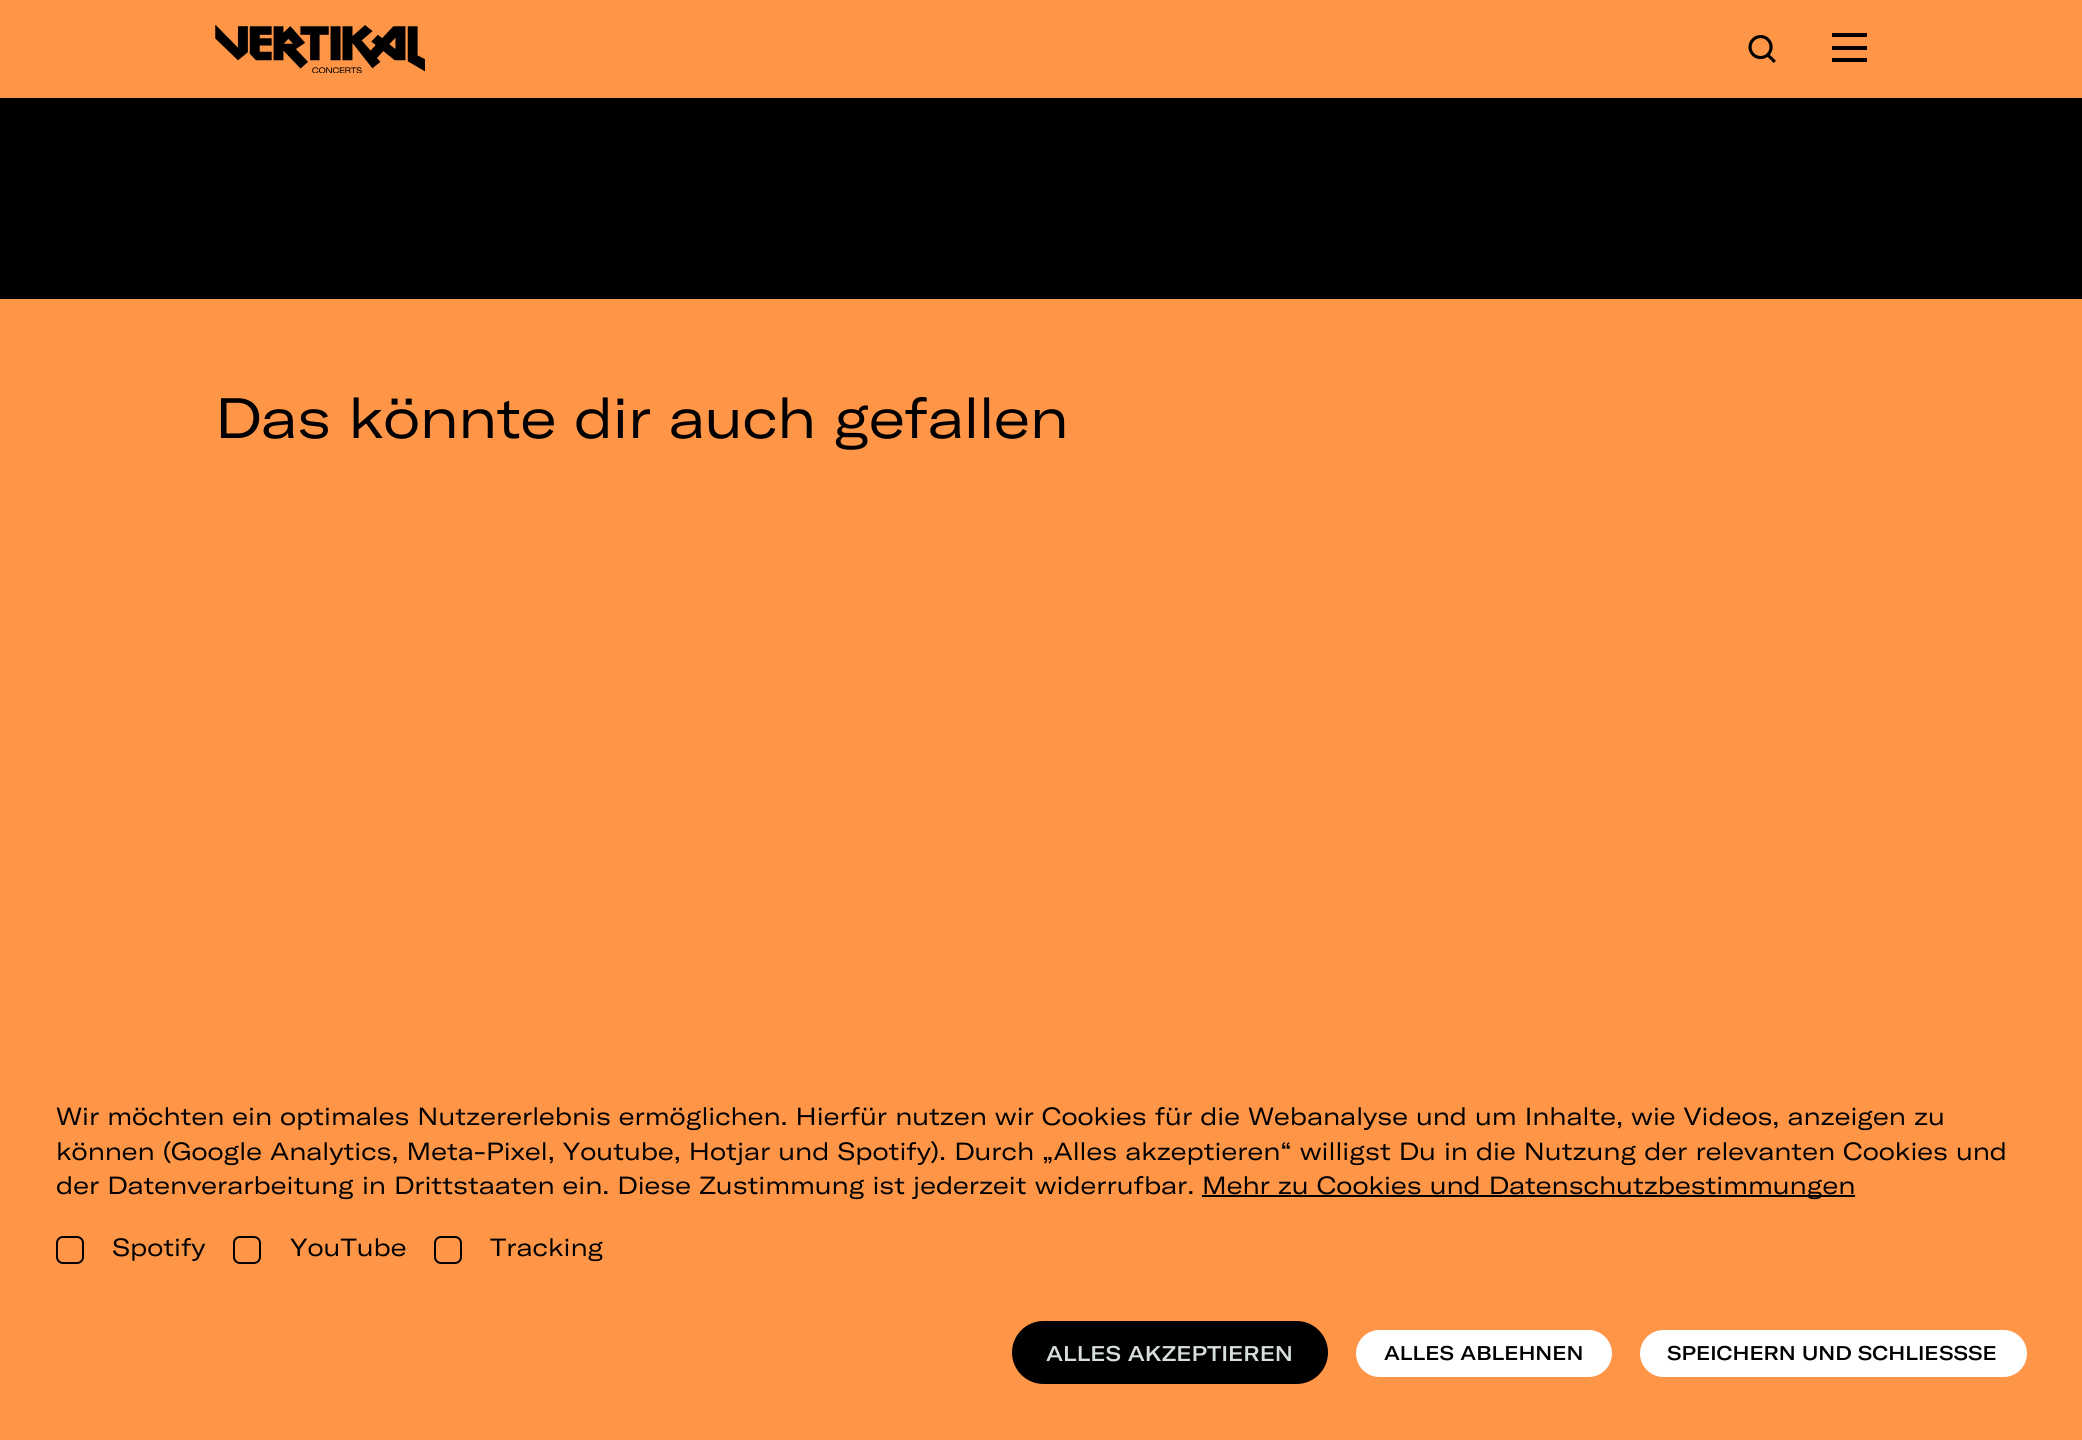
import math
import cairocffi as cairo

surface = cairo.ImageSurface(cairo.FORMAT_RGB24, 2082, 1440)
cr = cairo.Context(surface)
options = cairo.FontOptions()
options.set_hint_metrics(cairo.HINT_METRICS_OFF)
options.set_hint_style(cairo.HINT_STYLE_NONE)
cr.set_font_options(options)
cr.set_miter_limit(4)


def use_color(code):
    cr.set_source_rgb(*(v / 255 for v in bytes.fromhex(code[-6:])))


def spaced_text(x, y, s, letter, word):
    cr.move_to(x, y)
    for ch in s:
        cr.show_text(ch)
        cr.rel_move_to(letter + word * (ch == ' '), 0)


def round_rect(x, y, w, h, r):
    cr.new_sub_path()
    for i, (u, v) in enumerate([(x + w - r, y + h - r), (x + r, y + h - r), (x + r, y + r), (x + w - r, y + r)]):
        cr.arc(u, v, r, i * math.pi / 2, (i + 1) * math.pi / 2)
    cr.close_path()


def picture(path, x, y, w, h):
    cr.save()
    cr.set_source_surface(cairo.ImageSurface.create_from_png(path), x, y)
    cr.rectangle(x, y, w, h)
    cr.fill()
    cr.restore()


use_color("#000000")
cr.paint()
use_color("#ff9546")
cr.rectangle(0, 0, 2082, 98)
cr.fill()
picture("img1.png", 215, 25, 210, 48)
picture("img2.png", 1748, 35, 28, 28)
use_color("#000000")
cr.rectangle(1832, 46, 35, 4)
cr.fill()
cr.rectangle(1832, 33, 35, 4)
cr.fill()
cr.rectangle(1832, 58, 35, 4)
cr.fill()
use_color("#ff9546")
cr.rectangle(0, 299, 2082, 1141)
cr.fill()
cr.select_font_face("GT America")
cr.set_font_size(56)
use_color("#000000")
spaced_text(215, 438, "Das könnte dir auch gefallen", -0.55, 0)
cr.set_font_size(24.5)
cr.move_to(56, 1125)
cr.show_text("Wir möchten ein optimales Nutzererlebnis ermöglichen. Hierfür nutzen wir Cookies für die Webanalyse und um Inhalte, wie Videos, anzeigen zu")
cr.move_to(56, 1160)
cr.show_text("können (Google Analytics, Meta-Pixel, Youtube, Hotjar und Spotify). Durch „Alles akzeptieren“ willigst Du in die Nutzung der relevanten Cookies und")
cr.move_to(56, 1194)
cr.show_text("der Datenverarbeitung in Drittstaaten ein. Diese Zustimmung ist jederzeit widerrufbar.")
cr.rectangle(1202, 1195, 653, 2)
cr.fill()
cr.move_to(1202, 1194)
cr.show_text("Mehr zu Cookies und Datenschutzbestimmungen")
round_rect(57, 1237, 26, 26, 6)
cr.stroke()
cr.move_to(112, 1256)
cr.show_text("Spotify")
round_rect(234, 1237, 26, 26, 6)
cr.stroke()
cr.move_to(290, 1256)
cr.show_text("YouTube")
round_rect(435, 1237, 26, 26, 6)
cr.stroke()
cr.move_to(490, 1256)
cr.show_text("Tracking")
round_rect(1012, 1321, 316, 63, 31.5)
cr.fill()
cr.select_font_face("GT America Medium")
cr.set_font_size(21)
use_color("#d7dfd9")
cr.move_to(1046, 1361)
cr.show_text("ALLES AKZEPTIEREN")
use_color("#ffffff")
round_rect(1356, 1330, 256, 47, 23.5)
cr.fill()
cr.set_font_size(19.6)
use_color("#000000")
cr.move_to(1384, 1360)
cr.show_text("ALLES ABLEHNEN")
use_color("#ffffff")
round_rect(1640, 1330, 387, 47, 23.5)
cr.fill()
use_color("#000000")
cr.move_to(1667, 1360)
cr.show_text("SPEICHERN UND SCHLIE")
cr.move_to(1939, 1360)
cr.show_text("SSSE")
surface.write_to_png("result.png")
